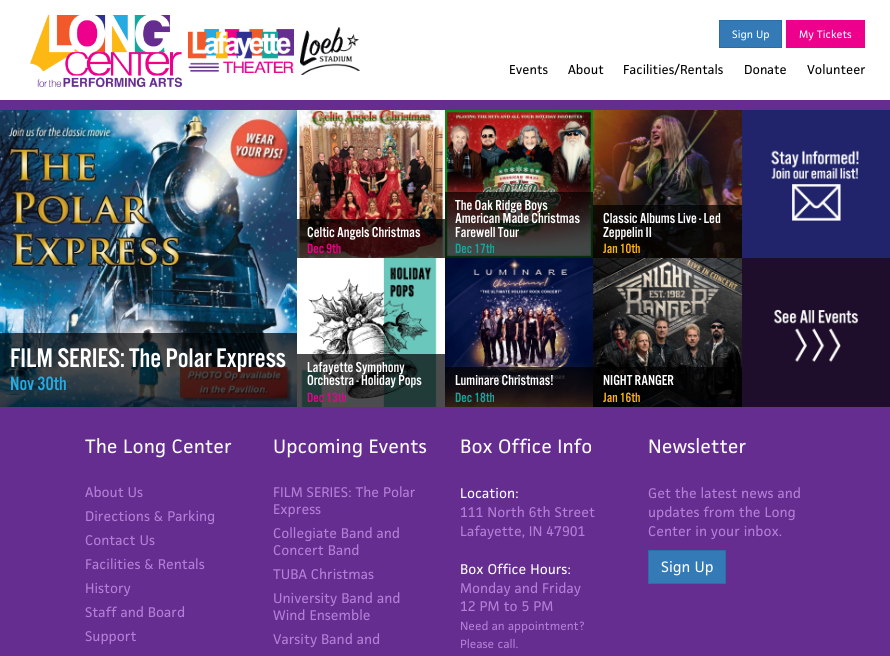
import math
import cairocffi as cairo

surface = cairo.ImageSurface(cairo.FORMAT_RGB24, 890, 656)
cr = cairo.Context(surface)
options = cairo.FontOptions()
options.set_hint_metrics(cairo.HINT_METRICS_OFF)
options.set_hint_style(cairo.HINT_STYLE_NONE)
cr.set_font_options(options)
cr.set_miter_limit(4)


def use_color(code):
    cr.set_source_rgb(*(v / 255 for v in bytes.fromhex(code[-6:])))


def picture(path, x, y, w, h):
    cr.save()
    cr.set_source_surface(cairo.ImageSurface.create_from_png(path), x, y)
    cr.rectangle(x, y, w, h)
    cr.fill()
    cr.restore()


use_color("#ffffff")
cr.paint()
use_color("#662d91")
cr.rectangle(0, 100, 890, 10)
cr.fill()
use_color("#337ab7")
cr.rectangle(719.5, 20.5, 62, 27)
cr.fill_preserve()
use_color("#2e6da4")
cr.set_line_width(1)
cr.stroke()
cr.select_font_face("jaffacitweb")
cr.set_font_size(10)
use_color("#ffffff")
cr.move_to(732, 38)
cr.show_text("Sign Up")
use_color("#ec008c")
cr.rectangle(786, 20, 79, 28)
cr.fill()
use_color("#ffffff")
cr.move_to(799, 38)
cr.show_text("My Tickets")
picture("img1.png", 30, 15, 152, 72)
picture("img2.png", 188, 29, 106, 44)
picture("img3.png", 300, 27, 60, 48)
cr.set_font_size(12)
use_color("#000000")
cr.move_to(509, 74)
cr.show_text("Events")
cr.move_to(568, 74)
cr.show_text("About")
cr.move_to(623, 74)
cr.show_text("Facilities/Rentals")
cr.move_to(744, 74)
cr.show_text("Donate")
cr.move_to(807, 74)
cr.show_text("Volunteer")
use_color("#1f0e2b")
cr.rectangle(742, 258, 148, 149)
cr.fill()
picture("img4.png", 0, 110, 297, 297)
cr.set_source_rgba(0, 0, 0, 0.7)
cr.rectangle(0, 333, 297, 74)
cr.fill()
cr.select_font_face("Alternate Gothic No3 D")
cr.set_font_size(28)
use_color("#ffffff")
cr.move_to(10, 367)
cr.show_text("FILM SERIES: The Polar Express")
cr.set_font_size(20)
use_color("#25aae1")
cr.move_to(10, 390)
cr.show_text("Nov 30th")
picture("img5.png", 297, 110, 148, 148)
cr.set_source_rgba(0, 0, 0, 0.7)
cr.rectangle(297, 219, 148, 39)
cr.fill()
cr.set_font_size(15)
use_color("#ffffff")
cr.move_to(307, 237)
cr.show_text("Celtic Angels Christmas")
cr.set_font_size(14)
use_color("#ec008c")
cr.move_to(307, 253)
cr.show_text("Dec 9th")
picture("img6.png", 297, 258, 148, 149)
cr.set_source_rgba(0, 0, 0, 0.7)
cr.rectangle(297, 354, 148, 53)
cr.fill()
cr.set_font_size(15)
use_color("#ffffff")
cr.move_to(307, 372)
cr.show_text("Lafayette Symphony")
cr.move_to(307, 385)
cr.show_text("Orchestra - Holiday Pops")
cr.set_font_size(14)
use_color("#ec008c")
cr.move_to(307, 402)
cr.show_text("Dec 13th")
picture("img7.png", 445, 110, 148, 148)
cr.set_source_rgba(0, 0, 0, 0.7)
cr.rectangle(445, 192, 148, 66)
cr.fill()
cr.set_font_size(15)
use_color("#ffffff")
cr.move_to(455, 210)
cr.show_text("The Oak Ridge Boys")
cr.move_to(455, 223)
cr.show_text("American Made Christmas")
cr.move_to(455, 237)
cr.show_text("Farewell Tour")
cr.set_font_size(14)
use_color("#13a89e")
cr.move_to(455, 253)
cr.show_text("Dec 17th")
picture("img8.png", 445, 258, 148, 149)
cr.set_source_rgba(0, 0, 0, 0.7)
cr.rectangle(445, 367, 148, 40)
cr.fill()
cr.set_font_size(15)
use_color("#ffffff")
cr.move_to(455, 385)
cr.show_text("Luminare Christmas!")
cr.set_font_size(14)
use_color("#13a89e")
cr.move_to(455, 402)
cr.show_text("Dec 18th")
picture("img9.png", 593, 110, 149, 148)
cr.set_source_rgba(0, 0, 0, 0.7)
cr.rectangle(593, 205, 149, 53)
cr.fill()
cr.set_font_size(15)
use_color("#ffffff")
cr.move_to(603, 223)
cr.show_text("Classic Albums Live - Led")
cr.move_to(603, 237)
cr.show_text("Zeppelin II")
cr.set_font_size(14)
use_color("#fdb813")
cr.move_to(603, 253)
cr.show_text("Jan 10th")
picture("img10.png", 593, 258, 149, 149)
cr.set_source_rgba(0, 0, 0, 0.7)
cr.rectangle(593, 367, 149, 40)
cr.fill()
cr.set_font_size(15)
use_color("#ffffff")
cr.move_to(603, 385)
cr.show_text("NIGHT RANGER")
cr.set_font_size(14)
use_color("#fdb813")
cr.move_to(603, 402)
cr.show_text("Jan 16th")
use_color("#22246b")
cr.rectangle(742, 110, 148, 148)
cr.fill()
picture("img11.png", 771, 150, 88, 71)
picture("img12.png", 774, 309, 85, 53)
use_color("#662d91")
cr.rectangle(0, 407, 890, 249)
cr.fill()
cr.select_font_face("jaffacitweb")
cr.set_font_size(18)
use_color("#ffffff")
cr.move_to(85, 453)
cr.show_text("The Long Center")
cr.set_font_size(13)
use_color("#b280d7")
cr.move_to(85, 497)
cr.show_text("About Us")
cr.move_to(85, 521)
cr.show_text("Directions & Parking")
cr.move_to(85, 545)
cr.show_text("Contact Us")
cr.move_to(85, 569)
cr.show_text("Facilities & Rentals")
cr.move_to(85, 593)
cr.show_text("History")
cr.move_to(85, 617)
cr.show_text("Staff and Board")
cr.move_to(85, 641)
cr.show_text("Support")
cr.set_font_size(18)
use_color("#ffffff")
cr.move_to(273, 453)
cr.show_text("Upcoming Events")
cr.set_font_size(13)
use_color("#b280d7")
cr.move_to(273, 497)
cr.show_text("FILM SERIES: The Polar")
cr.move_to(273, 514)
cr.show_text("Express")
cr.move_to(273, 538)
cr.show_text("Collegiate Band and")
cr.move_to(273, 555)
cr.show_text("Concert Band")
cr.move_to(273, 579)
cr.show_text("TUBA Christmas")
cr.move_to(273, 603)
cr.show_text("University Band and")
cr.move_to(273, 620)
cr.show_text("Wind Ensemble")
cr.move_to(273, 644)
cr.show_text("Varsity Band and")
cr.set_font_size(18)
use_color("#ffffff")
cr.move_to(460, 453)
cr.show_text("Box Office Info")
cr.set_font_size(13)
cr.move_to(460, 498)
cr.show_text("Location:")
use_color("#b280d7")
cr.move_to(460, 517)
cr.show_text("111 North 6th Street")
cr.move_to(460, 536)
cr.show_text("Lafayette, IN 47901")
use_color("#ffffff")
cr.move_to(460, 574)
cr.show_text("Box Office Hours:")
use_color("#b280d7")
cr.move_to(460, 593)
cr.show_text("Monday and Friday")
cr.move_to(460, 611)
cr.show_text("12 PM to 5 PM")
cr.set_font_size(11)
cr.move_to(460, 630)
cr.show_text("Need an appointment?")
cr.move_to(460, 648)
cr.show_text("Please call.")
cr.set_font_size(18)
use_color("#ffffff")
cr.move_to(648, 453)
cr.show_text("Newsletter")
cr.set_font_size(13)
use_color("#b280d7")
cr.move_to(648, 498)
cr.show_text("Get the latest news and")
cr.move_to(648, 517)
cr.show_text("updates from the Long")
cr.move_to(648, 536)
cr.show_text("Center in your inbox.")
use_color("#337ab7")
cr.rectangle(648.5, 550.5, 77, 33)
cr.fill_preserve()
use_color("#2e6da4")
cr.stroke()
cr.set_font_size(14)
use_color("#ffffff")
cr.move_to(661, 572)
cr.show_text("Sign Up")
surface.write_to_png("result.png")
